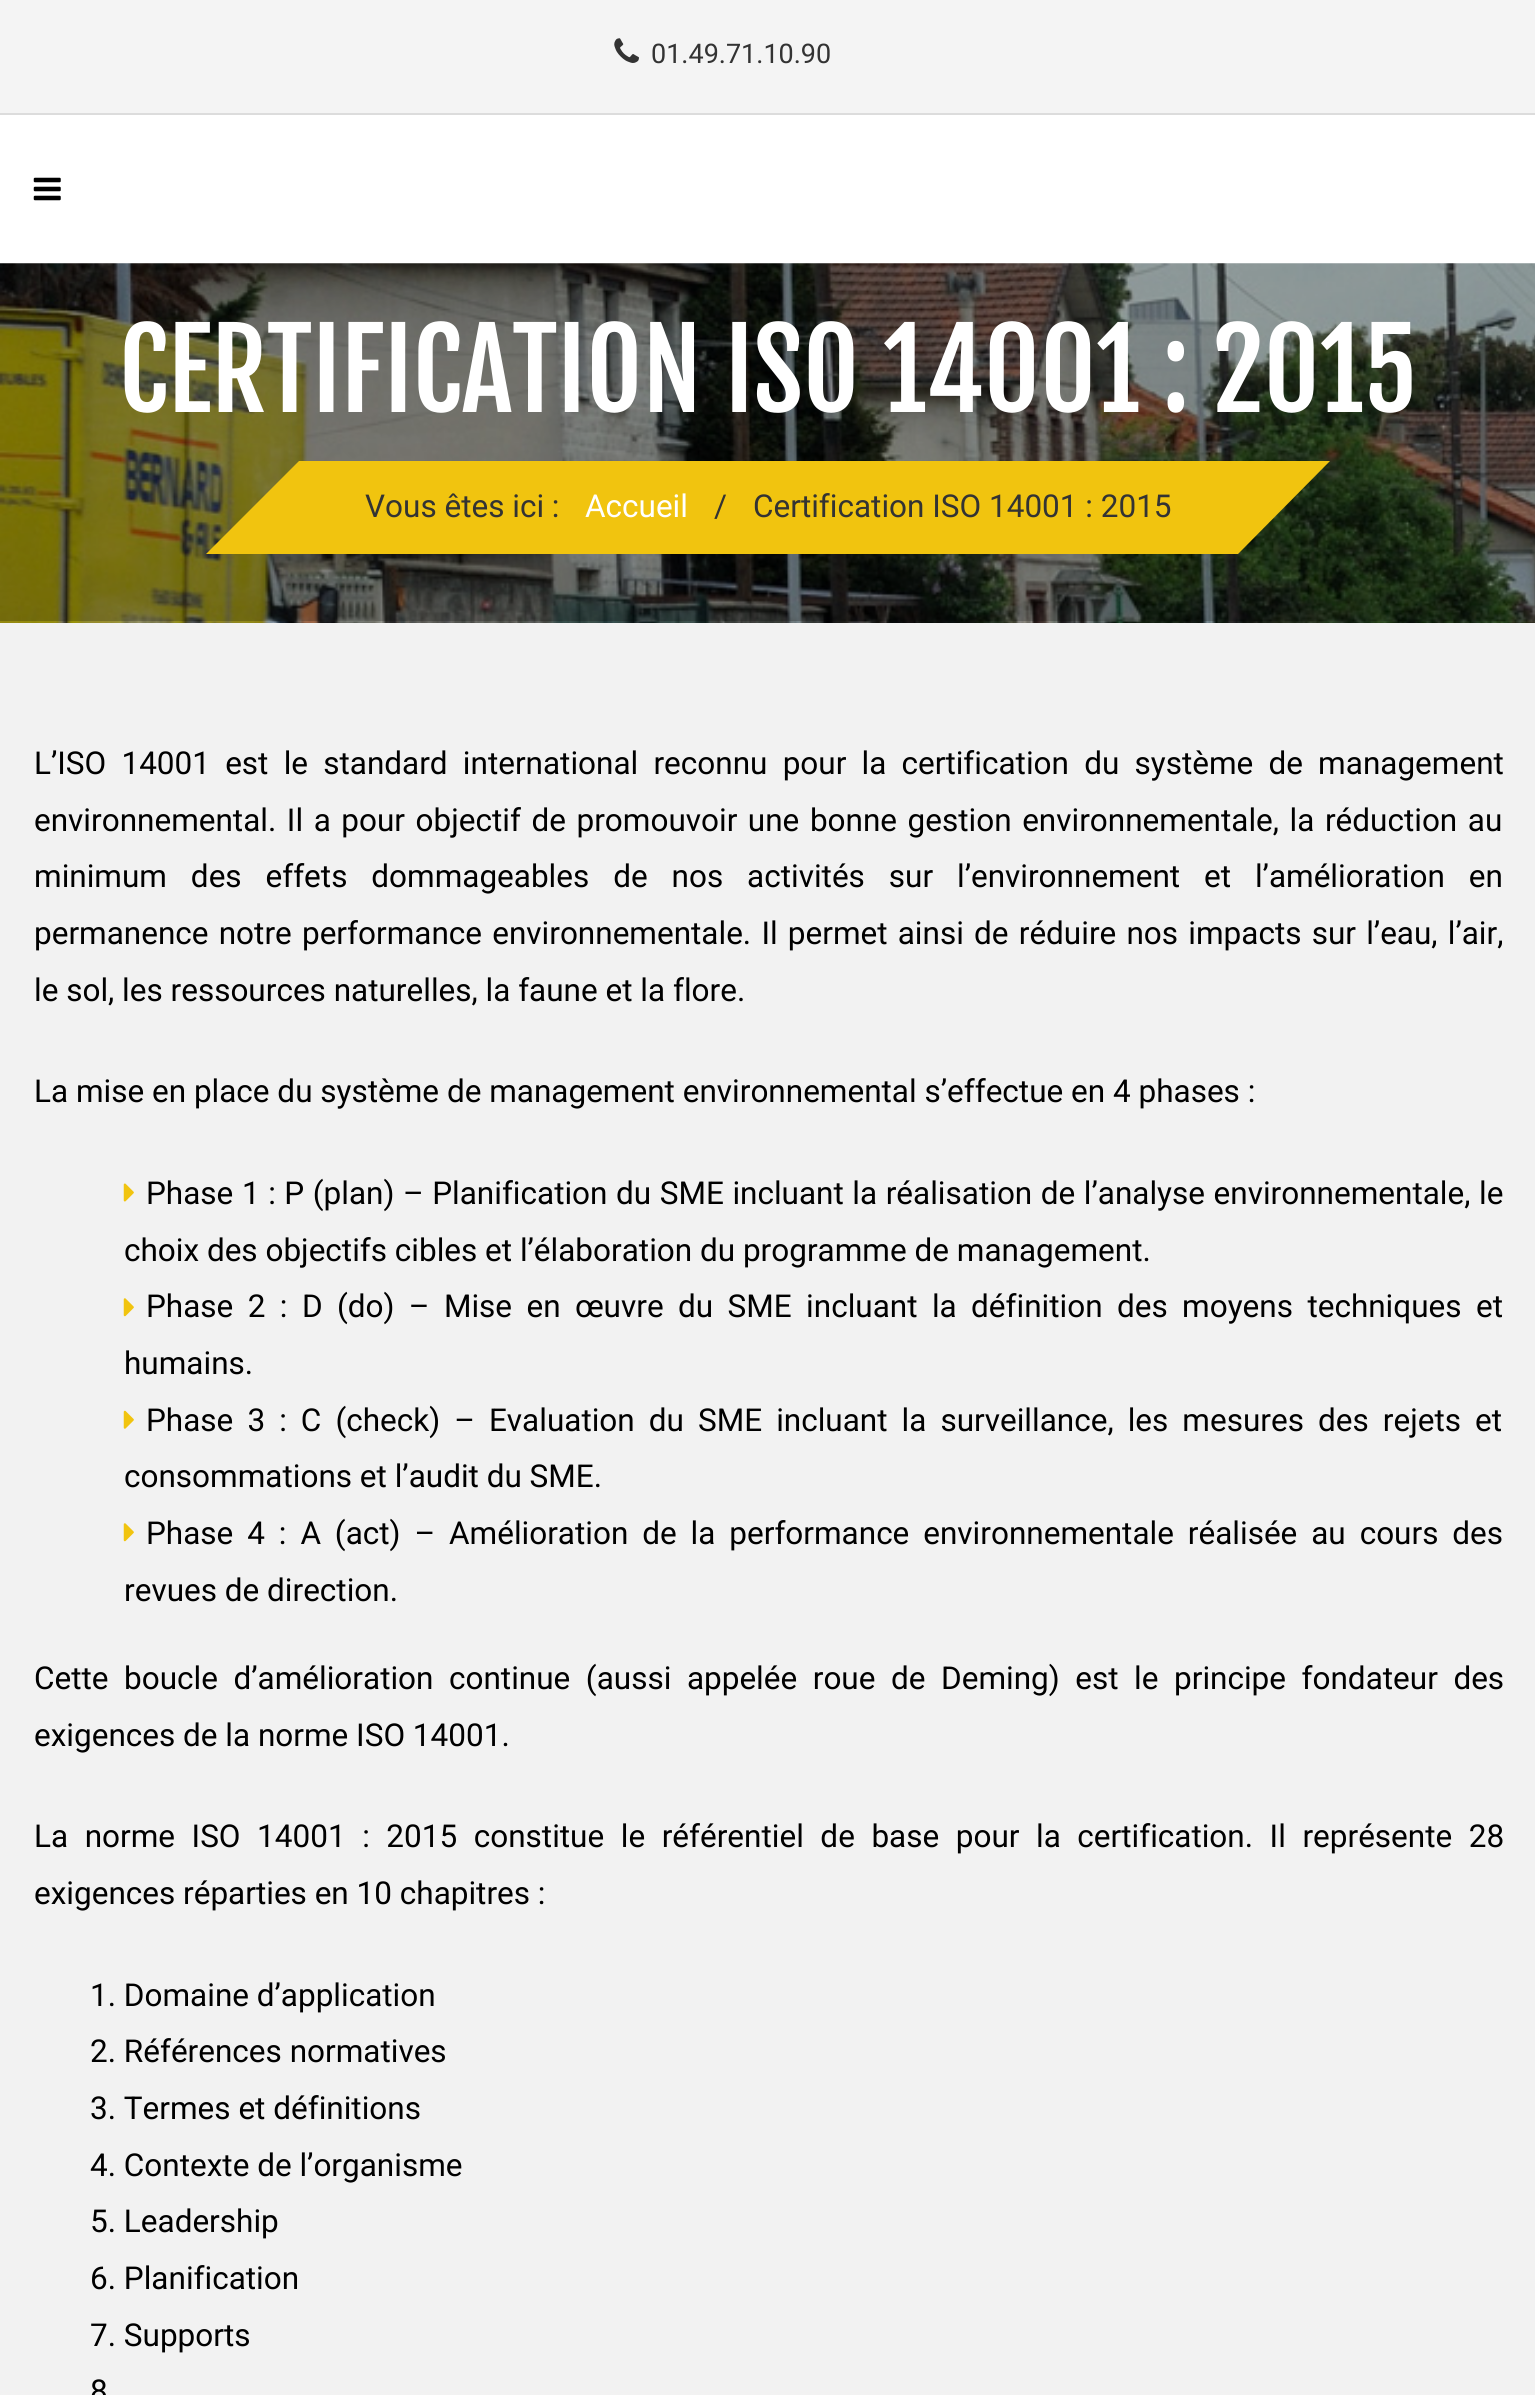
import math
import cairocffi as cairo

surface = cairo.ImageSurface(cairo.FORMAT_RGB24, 1535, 2395)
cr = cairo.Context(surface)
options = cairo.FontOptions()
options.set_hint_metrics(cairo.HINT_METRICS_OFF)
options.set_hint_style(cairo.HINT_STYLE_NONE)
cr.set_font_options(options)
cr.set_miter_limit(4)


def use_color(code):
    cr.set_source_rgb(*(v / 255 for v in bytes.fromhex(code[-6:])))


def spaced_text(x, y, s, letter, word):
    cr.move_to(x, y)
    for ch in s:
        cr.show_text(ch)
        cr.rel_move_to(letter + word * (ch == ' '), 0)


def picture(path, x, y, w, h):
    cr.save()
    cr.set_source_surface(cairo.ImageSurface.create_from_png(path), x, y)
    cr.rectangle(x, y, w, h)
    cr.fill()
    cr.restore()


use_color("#ffffff")
cr.paint()
use_color("#f4f4f4")
cr.rectangle(0, 0, 1535, 113)
cr.fill()
use_color("#dcdcdc")
cr.rectangle(0, 113, 1535, 2)
cr.fill()
picture("img1.png", 614, 38, 25, 25)
cr.select_font_face("Roboto")
cr.set_font_size(27)
use_color("#333333")
cr.move_to(651, 63)
cr.show_text("01.49.71.10.90")
picture("img2.png", 33, 177, 28, 24)
picture("img3.png", 0, 263, 1535, 360)
cr.set_source_rgba(0, 0, 0, 0.1)
cr.rectangle(0, 621, 1535, 2)
cr.fill()
cr.select_font_face("Fjalla One")
cr.set_font_size(108)
use_color("#ffffff")
cr.move_to(119, 412)
cr.show_text("CERTIFICATION ISO 14001 : 2015")
use_color("#f1c40f")
cr.new_path()
cr.move_to(299, 461)
cr.line_to(1330, 461)
cr.line_to(1238, 554)
cr.line_to(206, 554)
cr.close_path()
cr.fill()
cr.select_font_face("Roboto")
cr.set_font_size(31.5)
use_color("#333333")
cr.move_to(365, 517)
cr.show_text("Vous êtes ici :")
use_color("#ffffff")
cr.move_to(585, 517)
cr.show_text("Accueil")
use_color("#333333")
cr.move_to(714, 517)
cr.show_text("/")
cr.move_to(753, 517)
cr.show_text("Certification ISO 14001 : 2015")
use_color("#f2f2f2")
cr.rectangle(0, 623, 1535, 1772)
cr.fill()
use_color("#000000")
spaced_text(34, 774, "L’ISO 14001 est le standard international reconnu pour la certification du système de management", 0, 7.4)
spaced_text(34, 831, "environnemental. Il a pour objectif de promouvoir une bonne gestion environnementale, la réduction au", 0, 2.75)
spaced_text(34, 887, "minimum des effets dommageables de nos activités sur l’environnement et l’amélioration en", 0, 16.1)
spaced_text(34, 944, "permanence notre performance environnementale. Il permet ainsi de réduire nos impacts sur l’eau, l’air,", 0, 2.4)
cr.move_to(34, 1001)
cr.show_text("le sol, les ressources naturelles, la faune et la flore.")
cr.move_to(34, 1102)
cr.show_text("La mise en place du système de management environnemental s’effectue en 4 phases :")
picture("img4.png", 123, 1183, 11, 19)
spaced_text(146, 1204, "Phase 1 : P (plan) – Planification du SME incluant la réalisation de l’analyse environnementale, le", 0, 0.75)
cr.move_to(124, 1261)
cr.show_text("choix des objectifs cibles et l’élaboration du programme de management.")
picture("img5.png", 123, 1298, 11, 19)
spaced_text(146, 1317, "Phase 2 : D (do) – Mise en œuvre du SME incluant la définition des moyens techniques et", 0, 6.6)
cr.move_to(124, 1374)
cr.show_text("humains.")
picture("img6.png", 123, 1410, 11, 19)
spaced_text(146, 1431, "Phase 3 : C (check) – Evaluation du SME incluant la surveillance, les mesures des rejets et", 0, 6.25)
cr.move_to(124, 1487)
cr.show_text("consommations et l’audit du SME.")
picture("img5.png", 123, 1523, 11, 19)
spaced_text(146, 1544, "Phase 4 : A (act) – Amélioration de la performance environnementale réalisée au cours des", 0, 6.1)
cr.move_to(124, 1601)
cr.show_text("revues de direction.")
spaced_text(34, 1689, "Cette boucle d’amélioration continue (aussi appelée roue de Deming) est le principe fondateur des", 0, 7.75)
cr.move_to(34, 1746)
cr.show_text("exigences de la norme ISO 14001.")
spaced_text(34, 1847, "La norme ISO 14001 : 2015 constitue le référentiel de base pour la certification. Il représente 28", 0, 8.75)
cr.move_to(34, 1904)
cr.show_text("exigences réparties en 10 chapitres :")
cr.move_to(90, 2006)
cr.show_text("1. Domaine d’application")
cr.move_to(90, 2062)
cr.show_text("2. Références normatives")
cr.move_to(90, 2119)
cr.show_text("3. Termes et définitions")
cr.move_to(90, 2176)
cr.show_text("4. Contexte de l’organisme")
cr.move_to(90, 2232)
cr.show_text("5. Leadership")
cr.move_to(90, 2289)
cr.show_text("6. Planification")
cr.move_to(90, 2346)
cr.show_text("7. Supports")
cr.move_to(90, 2402)
cr.show_text("8")
surface.write_to_png("result.png")
